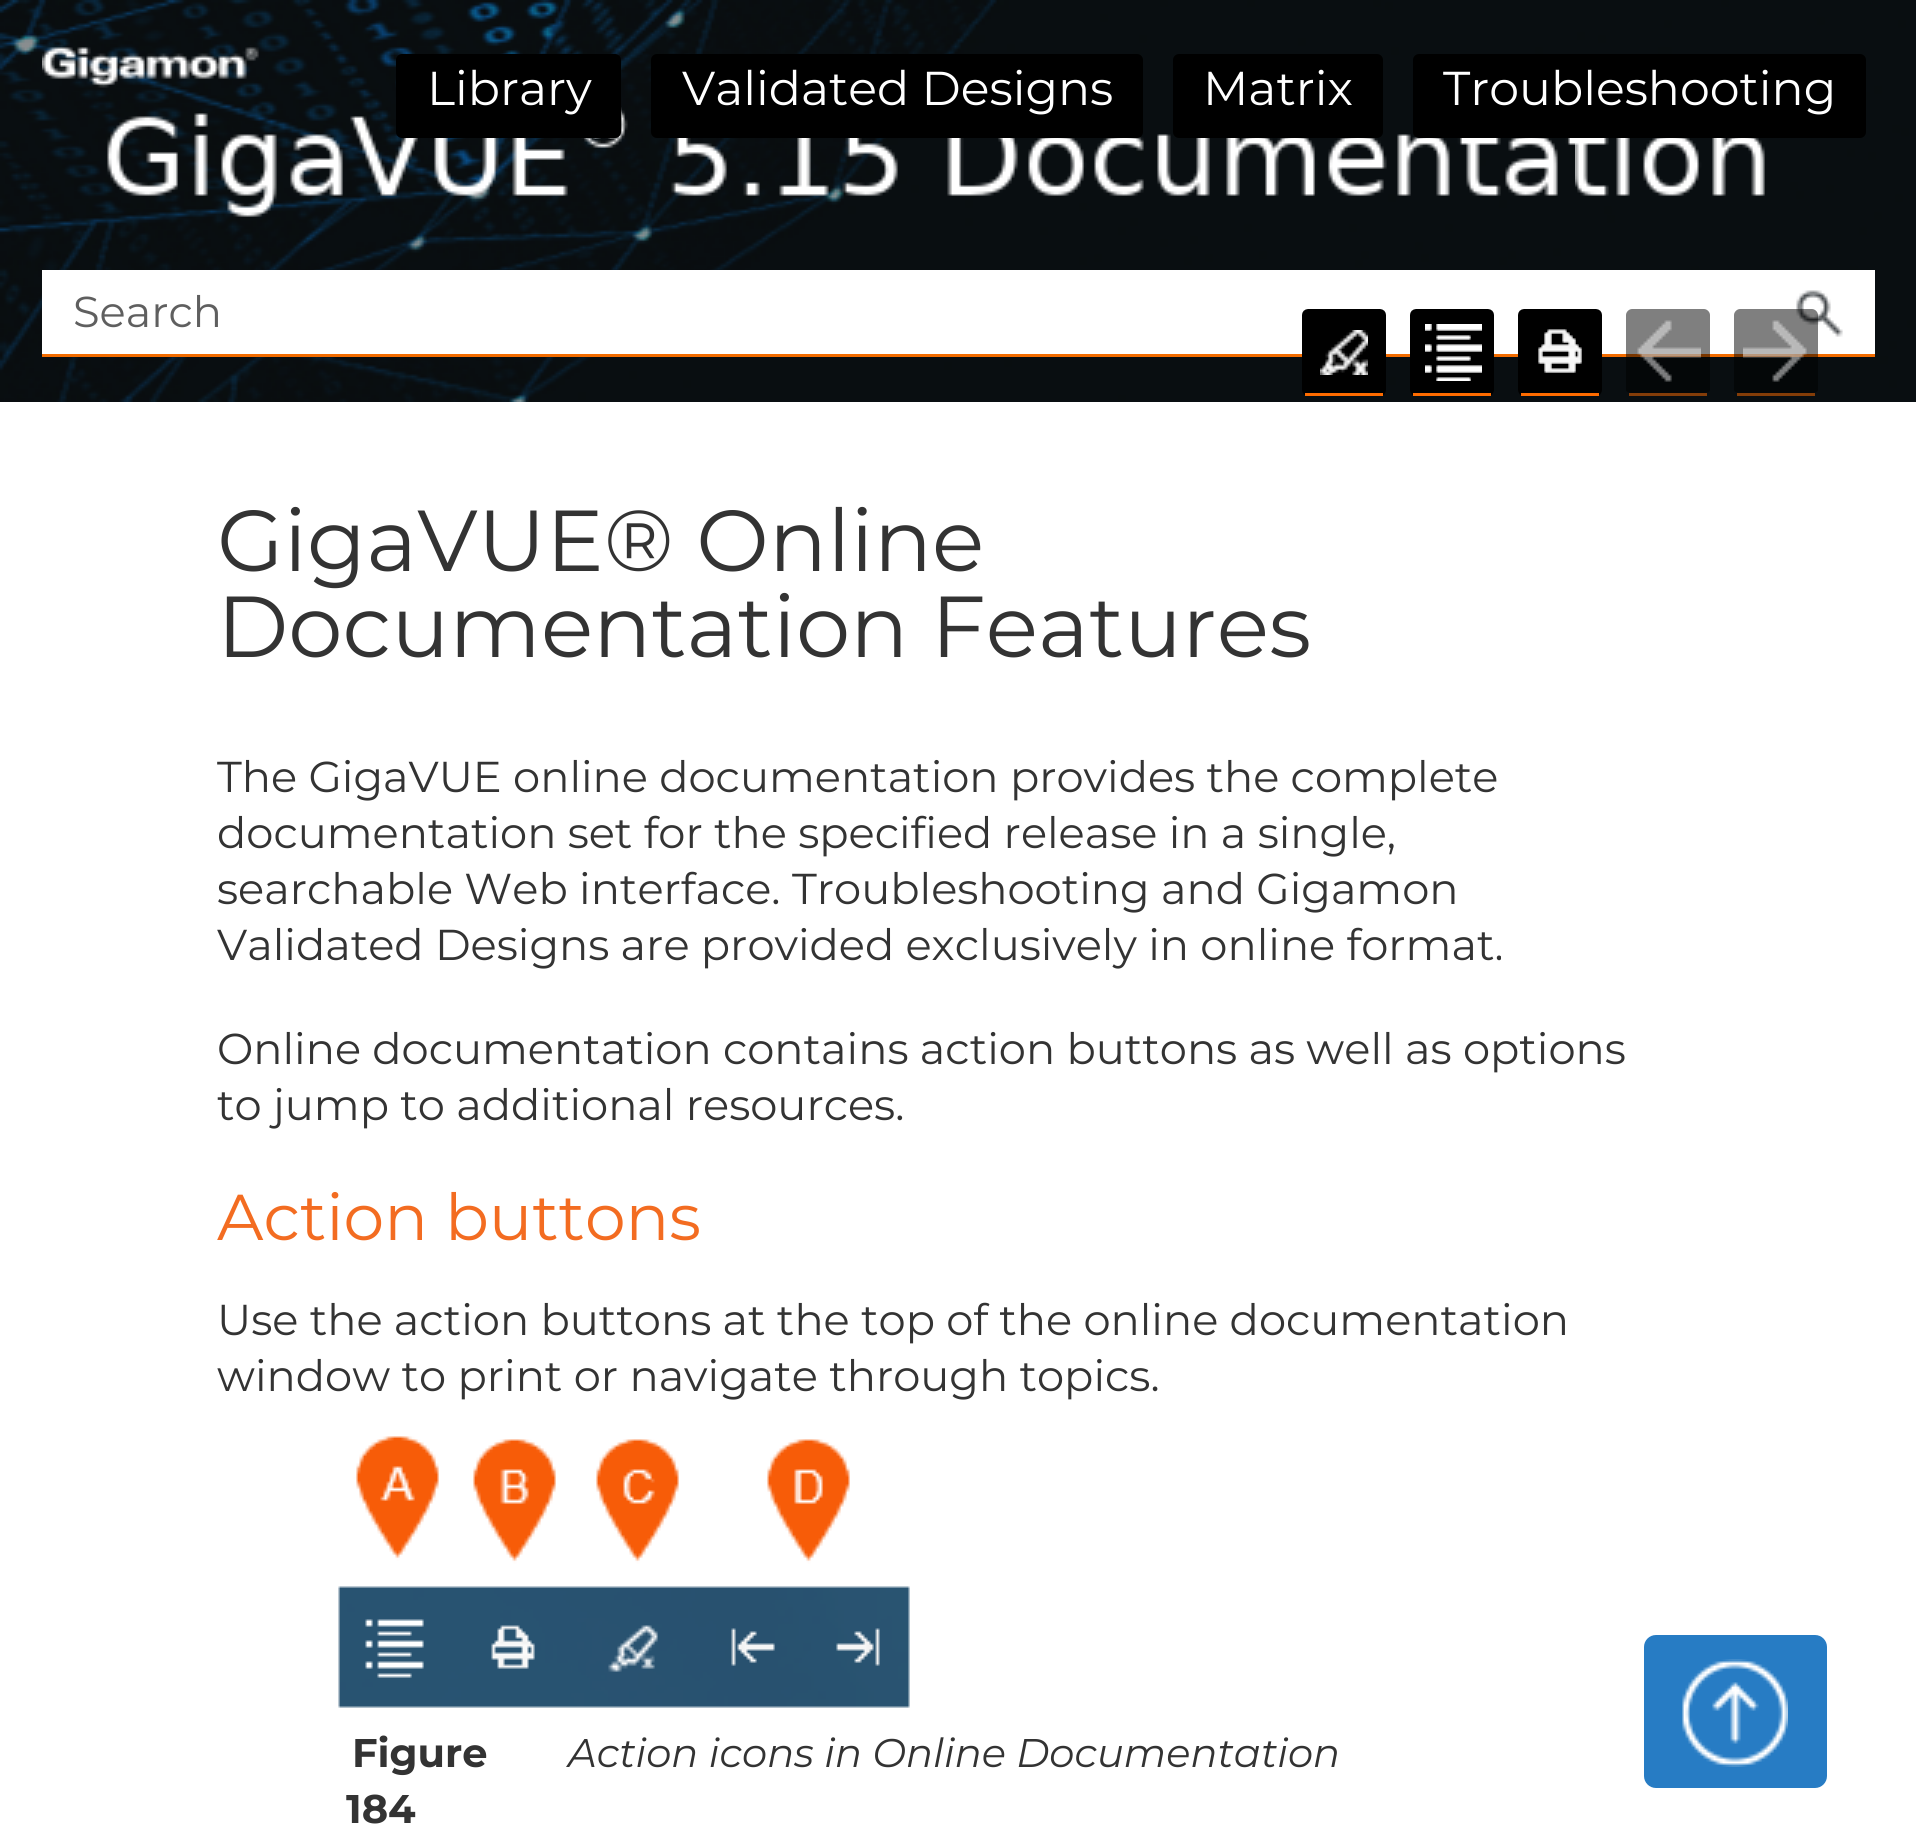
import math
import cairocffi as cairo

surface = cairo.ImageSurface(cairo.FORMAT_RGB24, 1916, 1847)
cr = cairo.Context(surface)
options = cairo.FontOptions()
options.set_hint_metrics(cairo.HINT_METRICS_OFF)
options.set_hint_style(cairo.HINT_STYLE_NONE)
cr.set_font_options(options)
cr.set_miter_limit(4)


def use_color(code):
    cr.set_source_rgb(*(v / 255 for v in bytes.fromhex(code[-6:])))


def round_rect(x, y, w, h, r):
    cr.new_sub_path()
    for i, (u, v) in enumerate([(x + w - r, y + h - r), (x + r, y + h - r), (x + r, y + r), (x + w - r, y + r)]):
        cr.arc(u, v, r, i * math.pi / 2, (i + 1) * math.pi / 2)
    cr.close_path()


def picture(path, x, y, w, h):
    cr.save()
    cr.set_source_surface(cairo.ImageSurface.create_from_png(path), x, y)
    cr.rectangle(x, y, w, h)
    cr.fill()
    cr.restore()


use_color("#ffffff")
cr.paint()
picture("img1.png", 0, 0, 1916, 402)
picture("img2.png", 42, 45, 1723, 172)
use_color("#ffffff")
cr.rectangle(42, 270, 1833, 84)
cr.fill()
use_color("#f36c00")
cr.rectangle(42, 354, 1833, 3)
cr.fill()
cr.select_font_face("Montserrat")
cr.set_font_size(43.2)
use_color("#5f5f5f")
cr.move_to(73, 327)
cr.show_text("Search")
picture("img3.png", 1796, 290, 47, 47)
use_color("#000000")
round_rect(396, 54, 225, 84, 6)
cr.fill()
cr.set_font_size(47.5)
use_color("#ffffff")
cr.move_to(427, 105)
cr.show_text("Library")
use_color("#000000")
round_rect(651, 54, 492, 84, 6)
cr.fill()
use_color("#ffffff")
cr.move_to(682, 105)
cr.show_text("Validated Designs")
use_color("#000000")
round_rect(1173, 54, 210, 84, 6)
cr.fill()
use_color("#ffffff")
cr.move_to(1203, 105)
cr.show_text("Matrix")
use_color("#000000")
round_rect(1413, 54, 453, 84, 6)
cr.fill()
use_color("#ffffff")
cr.move_to(1443, 105)
cr.show_text("Troubleshooting")
picture("img4.png", 1302, 309, 84, 86)
use_color("#ff6c00")
cr.rectangle(1305, 393, 78, 3)
cr.fill()
picture("img5.png", 1320, 330, 48, 45)
picture("img6.png", 1410, 309, 84, 86)
cr.rectangle(1413, 393, 78, 3)
cr.fill()
picture("img7.png", 1425, 324, 57, 57)
picture("img8.png", 1518, 309, 84, 86)
cr.rectangle(1521, 393, 78, 3)
cr.fill()
picture("img9.png", 1538, 329, 44, 44)
cr.set_source_rgba(0, 0, 0, 0.5)
cr.new_path()
cr.move_to(1632, 309)
cr.line_to(1704, 309)
cr.curve_to(1707, 309, 1710, 312, 1710, 315)
cr.line_to(1710, 390)
cr.curve_to(1710, 392, 1707, 393, 1704, 393)
cr.line_to(1632, 393)
cr.curve_to(1629, 393, 1626, 392, 1626, 390)
cr.line_to(1626, 315)
cr.curve_to(1626, 312, 1629, 309, 1632, 309)
cr.close_path()
cr.fill()
use_color("#843d09")
cr.rectangle(1629, 393, 78, 3)
cr.fill()
picture("img10.png", 1637, 320, 64, 62)
cr.set_source_rgba(0, 0, 0, 0.5)
cr.new_path()
cr.move_to(1740, 309)
cr.line_to(1812, 309)
cr.curve_to(1815, 309, 1818, 312, 1818, 315)
cr.line_to(1818, 390)
cr.curve_to(1818, 392, 1815, 393, 1812, 393)
cr.line_to(1740, 393)
cr.curve_to(1737, 393, 1734, 392, 1734, 390)
cr.line_to(1734, 315)
cr.curve_to(1734, 312, 1737, 309, 1740, 309)
cr.close_path()
cr.fill()
use_color("#843d08")
cr.rectangle(1737, 393, 78, 3)
cr.fill()
picture("img11.png", 1743, 320, 64, 62)
cr.set_font_size(86.4)
use_color("#333333")
cr.move_to(217, 571)
cr.show_text("GigaVUE® Online")
cr.move_to(217, 657)
cr.show_text("Documentation Features")
cr.set_font_size(43.2)
cr.move_to(217, 792)
cr.show_text("The GigaVUE online documentation provides the complete")
cr.move_to(217, 848)
cr.show_text("documentation set for the specified release in a single,")
cr.move_to(217, 904)
cr.show_text("searchable Web interface.")
cr.move_to(792, 904)
cr.show_text("Troubleshooting and Gigamon")
cr.move_to(217, 960)
cr.show_text("Validated Designs are provided exclusively in online format.")
cr.move_to(217, 1064)
cr.show_text("Online documentation contains action buttons as well as options")
cr.move_to(217, 1120)
cr.show_text("to jump to additional resources.")
cr.set_font_size(64.75)
use_color("#f36c21")
cr.move_to(217, 1240)
cr.show_text("Action buttons")
cr.set_font_size(43.2)
use_color("#333333")
cr.move_to(217, 1335)
cr.show_text("Use the action buttons at the top of the online documentation")
cr.move_to(217, 1391)
cr.show_text("window to print or navigate through topics.")
picture("img12.png", 338, 1436, 572, 272)
cr.select_font_face("Montserrat", cairo.FONT_SLANT_NORMAL, cairo.FONT_WEIGHT_BOLD)
cr.set_font_size(40)
cr.move_to(352, 1767)
cr.show_text("Figure")
cr.move_to(346, 1823)
cr.show_text("184")
cr.select_font_face("Montserrat", cairo.FONT_SLANT_ITALIC)
cr.move_to(568, 1767)
cr.show_text("Action icons in Online Documentation")
use_color("#277cc4")
round_rect(1644, 1635, 183, 153, 12)
cr.fill()
picture("img13.png", 1682, 1659, 106, 108)
surface.write_to_png("result.png")
